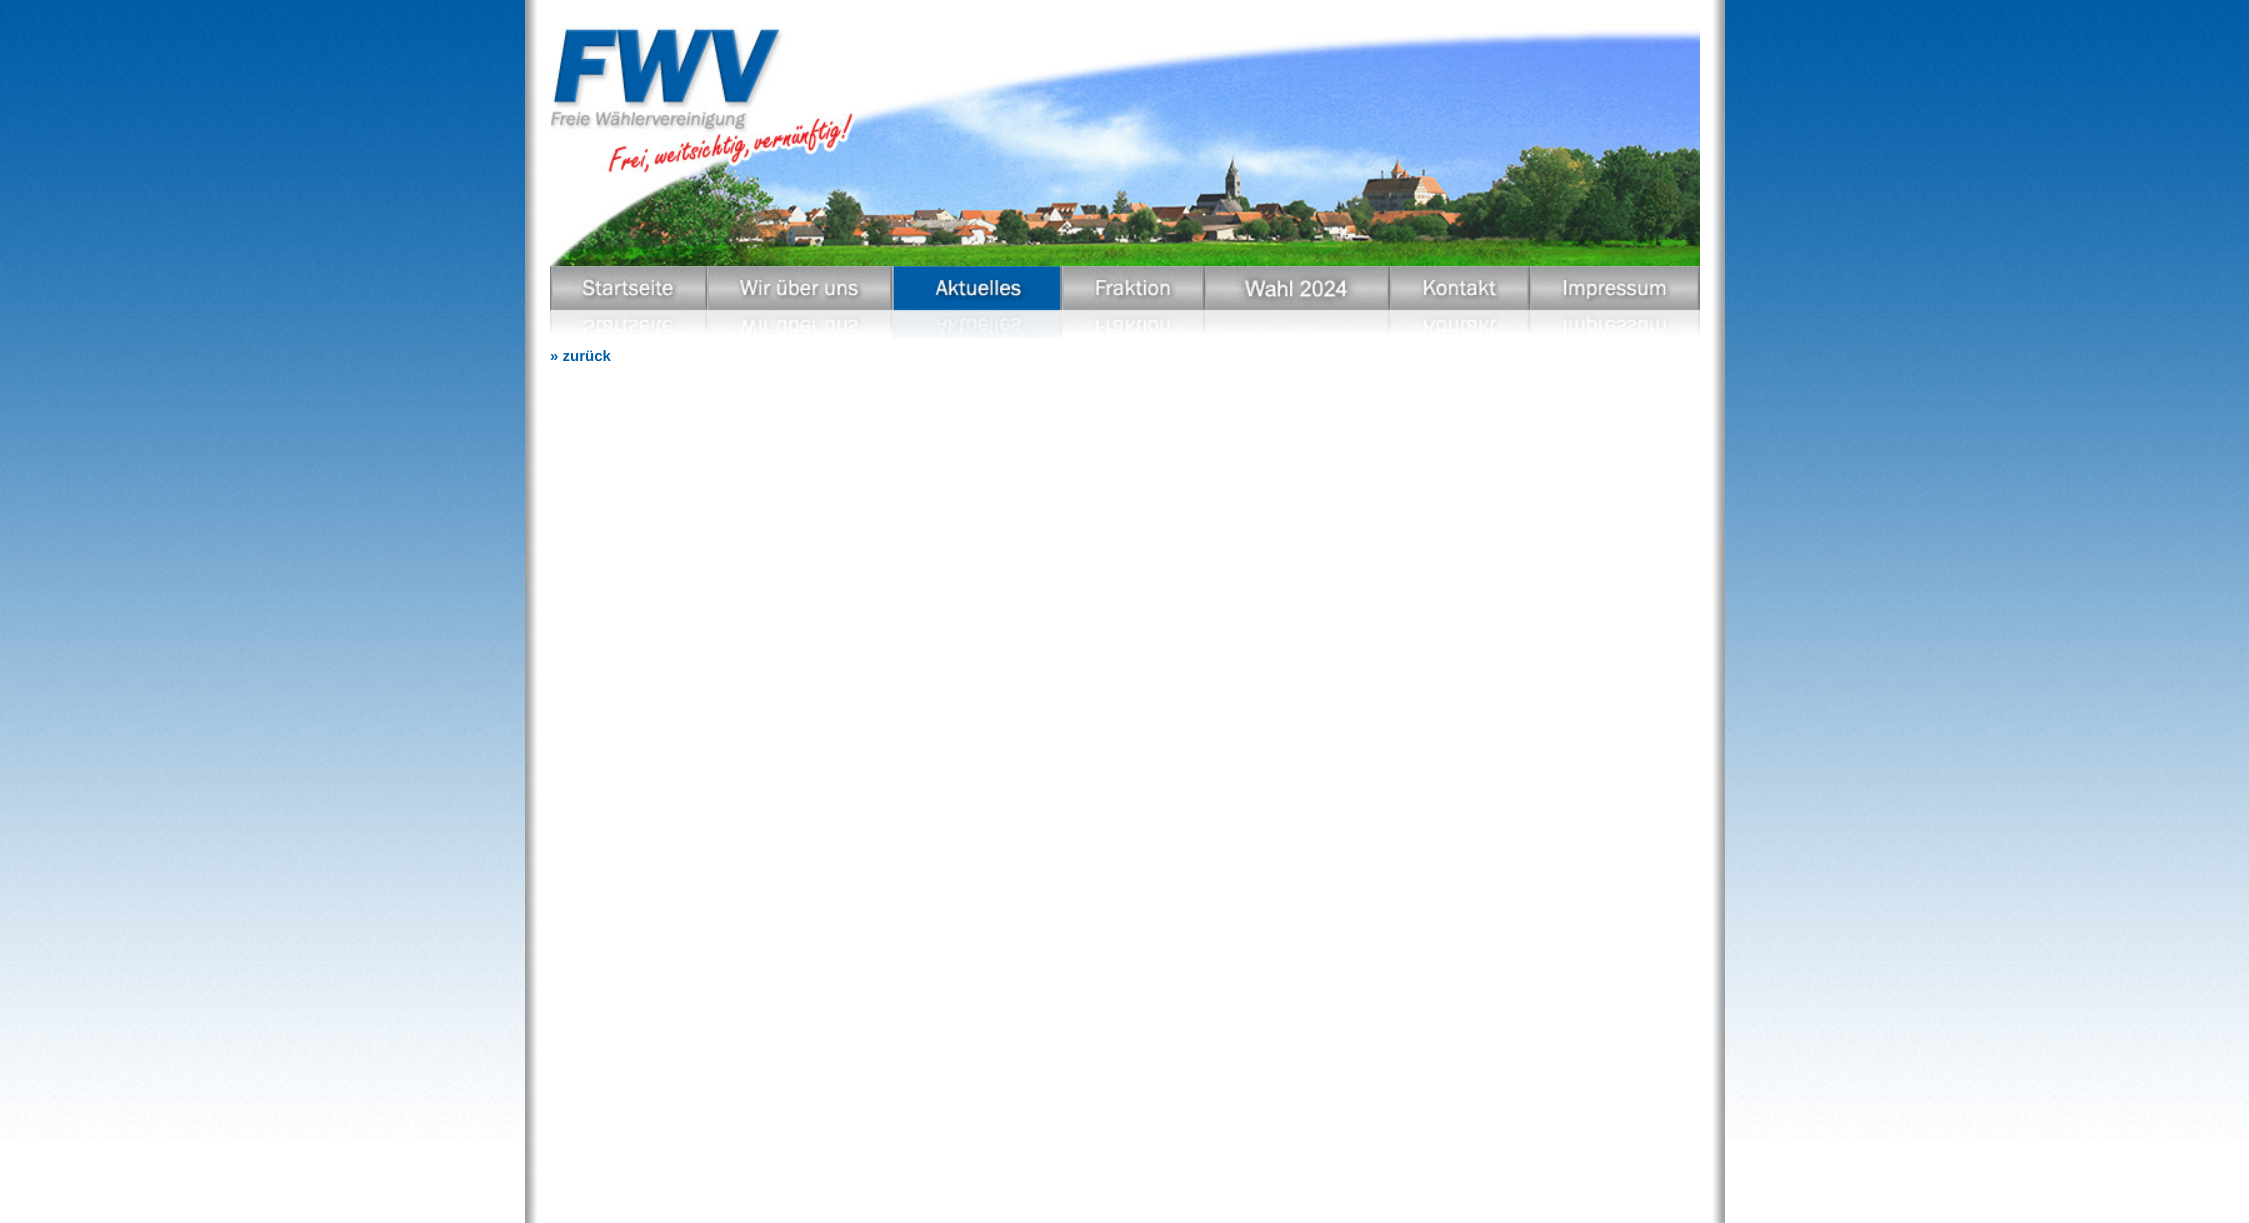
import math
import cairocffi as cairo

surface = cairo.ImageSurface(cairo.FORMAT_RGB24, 2249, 1223)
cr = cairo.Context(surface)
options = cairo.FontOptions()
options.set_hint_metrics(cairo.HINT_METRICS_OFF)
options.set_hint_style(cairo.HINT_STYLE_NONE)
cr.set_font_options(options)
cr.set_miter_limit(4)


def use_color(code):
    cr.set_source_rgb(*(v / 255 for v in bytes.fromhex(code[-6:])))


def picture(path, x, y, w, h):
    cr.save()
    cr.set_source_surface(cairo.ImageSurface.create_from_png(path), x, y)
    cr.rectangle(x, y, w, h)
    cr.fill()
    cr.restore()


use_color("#ffffff")
cr.paint()
picture("img1.png", 0, 0, 2249, 1140)
picture("img2.png", 525, 0, 1200, 1223)
picture("img3.png", 550, 24, 1150, 243)
picture("img4.png", 550, 266, 158, 69)
picture("img5.png", 707, 266, 186, 69)
picture("img6.png", 892, 266, 171, 73)
picture("img7.png", 1062, 266, 143, 68)
picture("img8.png", 1205, 266, 185, 68)
picture("img9.png", 1390, 266, 140, 68)
picture("img10.png", 1530, 266, 170, 70)
cr.select_font_face("Liberation Sans", cairo.FONT_SLANT_NORMAL, cairo.FONT_WEIGHT_BOLD)
cr.set_font_size(15)
use_color("#015da8")
cr.move_to(550, 361)
cr.show_text("» zurück")
surface.write_to_png("result.png")
